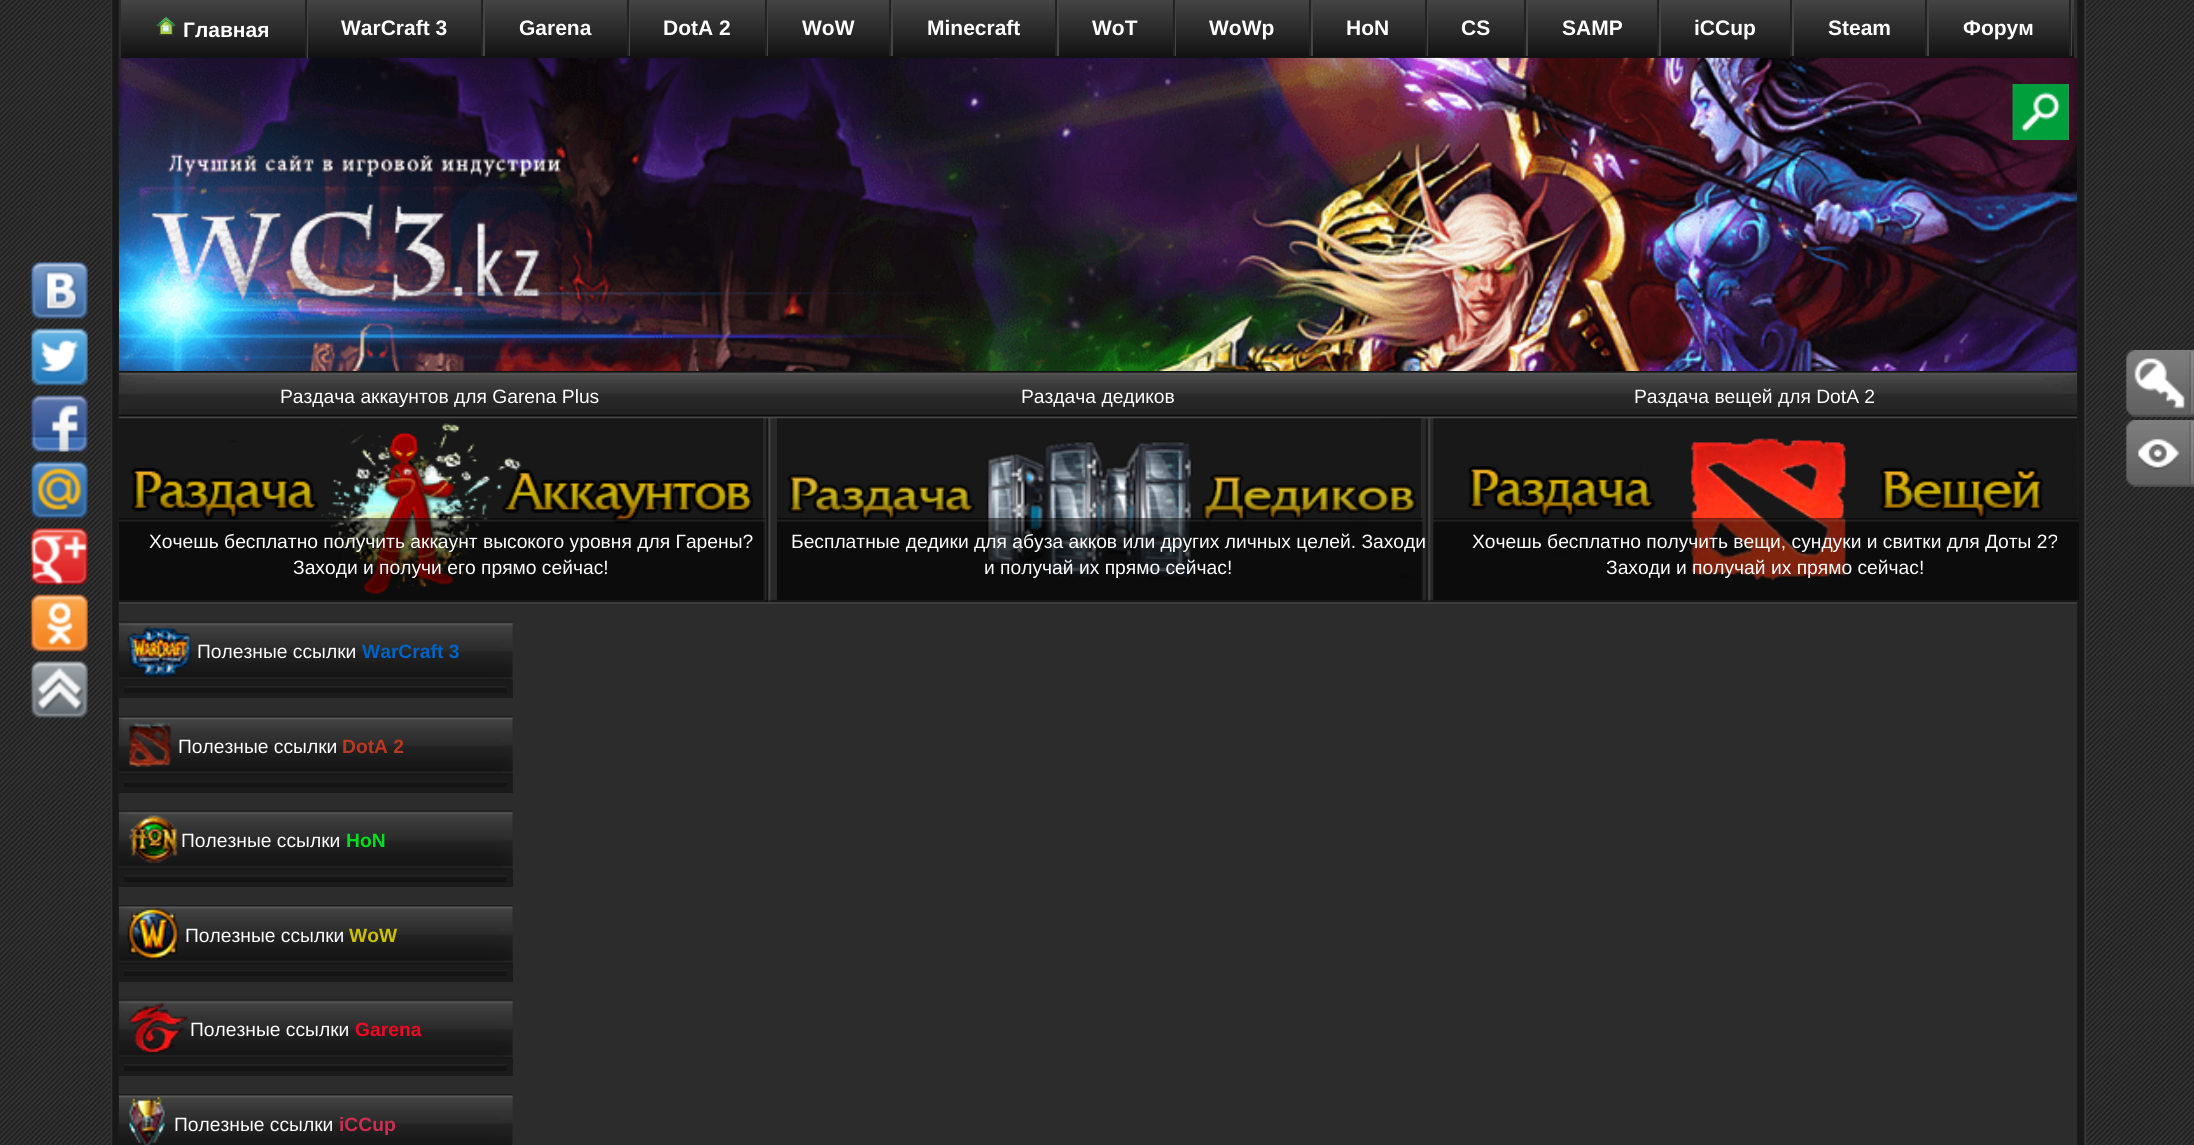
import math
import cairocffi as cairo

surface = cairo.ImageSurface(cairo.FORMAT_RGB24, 2194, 1145)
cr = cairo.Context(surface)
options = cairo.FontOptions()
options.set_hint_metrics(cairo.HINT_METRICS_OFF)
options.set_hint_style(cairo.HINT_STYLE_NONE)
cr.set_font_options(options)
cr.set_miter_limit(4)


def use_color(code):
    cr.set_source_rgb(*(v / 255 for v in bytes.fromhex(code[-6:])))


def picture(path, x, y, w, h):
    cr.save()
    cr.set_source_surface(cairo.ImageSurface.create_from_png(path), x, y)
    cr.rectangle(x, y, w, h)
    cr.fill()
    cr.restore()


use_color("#ffffff")
cr.paint()
picture("img1.png", 0, 0, 2194, 1145)
picture("img2.png", 110, 0, 9, 1145)
picture("img3.png", 2077, 0, 9, 1145)
use_color("#2c2c2c")
cr.rectangle(119, 0, 1958, 1145)
cr.fill()
gradient = cairo.LinearGradient(1097, 0, 1097, 58)
gradient.add_color_stop_rgba(0, 0.267, 0.267, 0.267, 1)
gradient.add_color_stop_rgba(1, 0.067, 0.067, 0.067, 1)
cr.set_source(gradient)
cr.rectangle(121, 0, 1953, 58)
cr.fill()
picture("img12.png", 119, 57, 1959, 314)
use_color("#444444")
cr.new_path()
cr.move_to(123, 58)
cr.line_to(308, 58)
cr.line_to(308, 0)
cr.line_to(306, 0)
cr.line_to(306, 58)
cr.close_path()
cr.fill()
use_color("#222222")
cr.rectangle(305, 0, 2, 58)
cr.fill()
picture("img4.png", 156, 17, 20, 19)
cr.select_font_face("Liberation Sans", cairo.FONT_SLANT_NORMAL, cairo.FONT_WEIGHT_BOLD)
cr.set_font_size(21)
use_color("#ffffff")
cr.move_to(183, 37)
cr.show_text("Главная")
use_color("#444444")
cr.rectangle(483, 0, 2, 56)
cr.fill()
use_color("#222222")
cr.rectangle(481, 0, 2, 56)
cr.fill()
use_color("#ffffff")
cr.move_to(341, 35)
cr.show_text("WarCraft 3")
use_color("#444444")
cr.rectangle(629, 0, 1, 56)
cr.fill()
use_color("#222222")
cr.rectangle(627, 0, 2, 56)
cr.fill()
use_color("#ffffff")
cr.move_to(519, 35)
cr.show_text("Garena")
use_color("#444444")
cr.rectangle(767, 0, 1, 56)
cr.fill()
use_color("#222222")
cr.rectangle(765, 0, 2, 56)
cr.fill()
use_color("#ffffff")
cr.move_to(663, 35)
cr.show_text("DotA 2")
use_color("#444444")
cr.rectangle(891, 0, 2, 56)
cr.fill()
use_color("#222222")
cr.rectangle(889, 0, 2, 56)
cr.fill()
use_color("#ffffff")
cr.move_to(802, 35)
cr.show_text("WoW")
use_color("#444444")
cr.rectangle(1057, 0, 2, 56)
cr.fill()
use_color("#222222")
cr.rectangle(1055, 0, 2, 56)
cr.fill()
use_color("#ffffff")
cr.move_to(927, 35)
cr.show_text("Minecraft")
use_color("#444444")
cr.rectangle(1175, 0, 1, 56)
cr.fill()
use_color("#222222")
cr.rectangle(1173, 0, 2, 56)
cr.fill()
use_color("#ffffff")
cr.move_to(1092, 35)
cr.show_text("WoT")
use_color("#444444")
cr.rectangle(1311, 0, 2, 56)
cr.fill()
use_color("#222222")
cr.rectangle(1309, 0, 2, 56)
cr.fill()
use_color("#ffffff")
cr.move_to(1209, 35)
cr.show_text("WoWp")
use_color("#444444")
cr.rectangle(1427, 0, 1, 56)
cr.fill()
use_color("#222222")
cr.rectangle(1425, 0, 2, 56)
cr.fill()
use_color("#ffffff")
cr.move_to(1346, 35)
cr.show_text("HoN")
use_color("#444444")
cr.rectangle(1526, 0, 2, 56)
cr.fill()
use_color("#222222")
cr.rectangle(1524, 0, 2, 56)
cr.fill()
use_color("#ffffff")
cr.move_to(1461, 35)
cr.show_text("CS")
use_color("#444444")
cr.rectangle(1659, 0, 2, 56)
cr.fill()
use_color("#222222")
cr.rectangle(1657, 0, 2, 56)
cr.fill()
use_color("#ffffff")
cr.move_to(1562, 35)
cr.show_text("SAMP")
use_color("#444444")
cr.rectangle(1792, 0, 2, 56)
cr.fill()
use_color("#222222")
cr.rectangle(1790, 0, 2, 56)
cr.fill()
use_color("#ffffff")
cr.move_to(1694, 35)
cr.show_text("iCCup")
use_color("#444444")
cr.rectangle(1927, 0, 2, 56)
cr.fill()
use_color("#222222")
cr.rectangle(1925, 0, 2, 56)
cr.fill()
use_color("#ffffff")
cr.move_to(1828, 35)
cr.show_text("Steam")
use_color("#444444")
cr.rectangle(2071, 0, 1, 56)
cr.fill()
use_color("#222222")
cr.rectangle(2069, 0, 2, 56)
cr.fill()
use_color("#ffffff")
cr.move_to(1963, 35)
cr.show_text("Форум")
picture("img5.png", 30, 262, 58, 57)
picture("img6.png", 30, 328, 58, 58)
picture("img7.png", 30, 395, 58, 57)
picture("img8.png", 30, 461, 58, 58)
picture("img9.png", 30, 528, 58, 57)
picture("img10.png", 30, 594, 58, 58)
picture("img11.png", 30, 661, 58, 57)
use_color("#797979")
cr.rectangle(2068, 84, 1, 56)
cr.fill()
picture("img13.png", 2012, 84, 57, 56)
picture("img14.png", 119, 371, 1958, 233)
cr.select_font_face("Liberation Sans")
cr.set_font_size(19.25)
use_color("#ffffff")
cr.move_to(280, 403)
cr.show_text("Раздача аккаунтов для Garena Plus")
picture("img15.png", 119, 418, 644, 182)
picture("img16.png", 119, 518, 646, 82)
cr.move_to(149, 548)
cr.show_text("Хочешь бесплатно получить аккаунт высокого уровня для Гарены?")
cr.move_to(293, 574)
cr.show_text("Заходи и получи его прямо сейчас!")
cr.move_to(1021, 403)
cr.show_text("Раздача дедиков")
picture("img17.png", 777, 418, 644, 182)
picture("img18.png", 777, 518, 646, 82)
cr.move_to(791, 548)
cr.show_text("Бесплатные дедики для абуза акков или других личных целей. Заходи")
cr.move_to(984, 574)
cr.show_text("и получай их прямо сейчас!")
cr.move_to(1634, 403)
cr.show_text("Раздача вещей для DotA 2")
picture("img19.png", 1433, 418, 644, 182)
picture("img20.png", 1433, 518, 646, 82)
cr.move_to(1472, 548)
cr.show_text("Хочешь бесплатно получить вещи, сундуки и свитки для Доты 2?")
cr.move_to(1606, 574)
cr.show_text("Заходи и получай их прямо сейчас!")
picture("img21.png", 2125, 350, 69, 67)
picture("img22.png", 2125, 420, 69, 67)
picture("img23.png", 119, 621, 394, 60)
cr.move_to(197, 658)
cr.show_text("Полезные ссылки")
cr.select_font_face("Liberation Sans", cairo.FONT_SLANT_NORMAL, cairo.FONT_WEIGHT_BOLD)
use_color("#0062c4")
cr.move_to(362, 658)
cr.show_text("WarCraft 3")
use_color("#1b1b1b")
cr.rectangle(119, 681, 394, 17)
cr.fill()
picture("img24.png", 124, 686, 383, 7)
picture("img25.png", 119, 716, 394, 59)
cr.select_font_face("Liberation Sans")
use_color("#ffffff")
cr.move_to(178, 753)
cr.show_text("Полезные ссылки")
cr.select_font_face("Liberation Sans", cairo.FONT_SLANT_NORMAL, cairo.FONT_WEIGHT_BOLD)
use_color("#ba3720")
cr.move_to(342, 753)
cr.show_text("DotA 2")
use_color("#1b1b1b")
cr.rectangle(119, 775, 394, 18)
cr.fill()
picture("img26.png", 124, 781, 383, 6)
picture("img27.png", 119, 810, 394, 60)
cr.select_font_face("Liberation Sans")
use_color("#ffffff")
cr.move_to(181, 847)
cr.show_text("Полезные ссылки")
cr.select_font_face("Liberation Sans", cairo.FONT_SLANT_NORMAL, cairo.FONT_WEIGHT_BOLD)
use_color("#00de21")
cr.move_to(346, 847)
cr.show_text("HoN")
use_color("#1b1b1b")
cr.rectangle(119, 870, 394, 17)
cr.fill()
picture("img24.png", 124, 875, 383, 7)
picture("img28.png", 119, 905, 394, 59)
cr.select_font_face("Liberation Sans")
use_color("#ffffff")
cr.move_to(185, 942)
cr.show_text("Полезные ссылки")
cr.select_font_face("Liberation Sans", cairo.FONT_SLANT_NORMAL, cairo.FONT_WEIGHT_BOLD)
use_color("#ccc100")
cr.move_to(349, 942)
cr.show_text("WoW")
use_color("#1b1b1b")
cr.rectangle(119, 964, 394, 18)
cr.fill()
picture("img26.png", 124, 970, 383, 6)
picture("img29.png", 119, 999, 394, 60)
cr.select_font_face("Liberation Sans")
use_color("#ffffff")
cr.move_to(190, 1036)
cr.show_text("Полезные ссылки")
cr.select_font_face("Liberation Sans", cairo.FONT_SLANT_NORMAL, cairo.FONT_WEIGHT_BOLD)
use_color("#f00722")
cr.move_to(355, 1036)
cr.show_text("Garena")
use_color("#1b1b1b")
cr.rectangle(119, 1059, 394, 17)
cr.fill()
picture("img24.png", 124, 1064, 383, 7)
picture("img30.png", 119, 1094, 394, 51)
cr.select_font_face("Liberation Sans")
use_color("#ffffff")
cr.move_to(174, 1131)
cr.show_text("Полезные ссылки")
cr.select_font_face("Liberation Sans", cairo.FONT_SLANT_NORMAL, cairo.FONT_WEIGHT_BOLD)
use_color("#cd2d50")
cr.move_to(339, 1131)
cr.show_text("iCCup")
surface.write_to_png("result.png")
